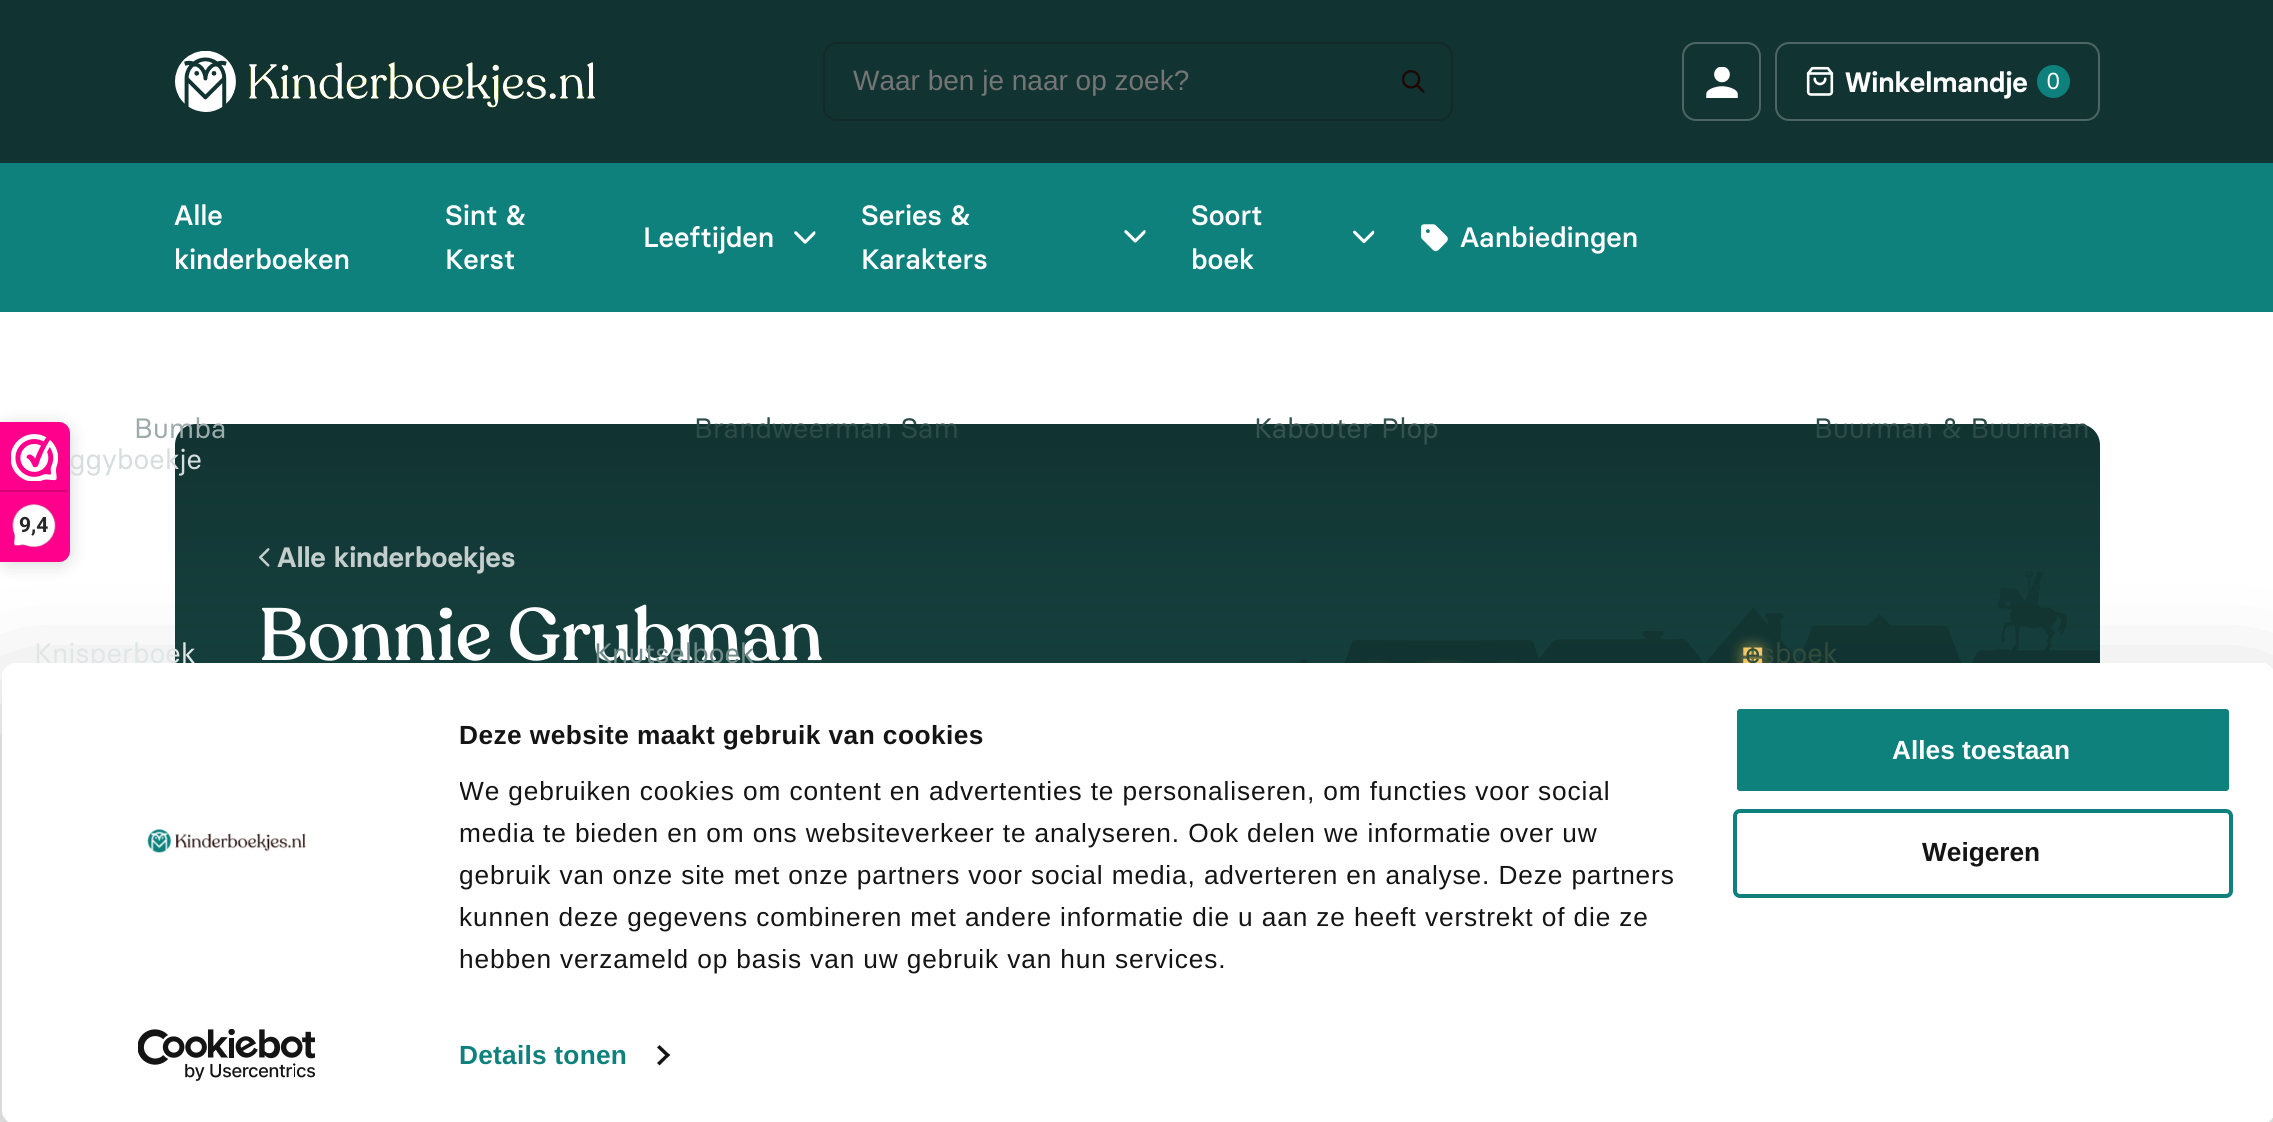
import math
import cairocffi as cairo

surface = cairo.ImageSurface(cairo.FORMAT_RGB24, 2273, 1122)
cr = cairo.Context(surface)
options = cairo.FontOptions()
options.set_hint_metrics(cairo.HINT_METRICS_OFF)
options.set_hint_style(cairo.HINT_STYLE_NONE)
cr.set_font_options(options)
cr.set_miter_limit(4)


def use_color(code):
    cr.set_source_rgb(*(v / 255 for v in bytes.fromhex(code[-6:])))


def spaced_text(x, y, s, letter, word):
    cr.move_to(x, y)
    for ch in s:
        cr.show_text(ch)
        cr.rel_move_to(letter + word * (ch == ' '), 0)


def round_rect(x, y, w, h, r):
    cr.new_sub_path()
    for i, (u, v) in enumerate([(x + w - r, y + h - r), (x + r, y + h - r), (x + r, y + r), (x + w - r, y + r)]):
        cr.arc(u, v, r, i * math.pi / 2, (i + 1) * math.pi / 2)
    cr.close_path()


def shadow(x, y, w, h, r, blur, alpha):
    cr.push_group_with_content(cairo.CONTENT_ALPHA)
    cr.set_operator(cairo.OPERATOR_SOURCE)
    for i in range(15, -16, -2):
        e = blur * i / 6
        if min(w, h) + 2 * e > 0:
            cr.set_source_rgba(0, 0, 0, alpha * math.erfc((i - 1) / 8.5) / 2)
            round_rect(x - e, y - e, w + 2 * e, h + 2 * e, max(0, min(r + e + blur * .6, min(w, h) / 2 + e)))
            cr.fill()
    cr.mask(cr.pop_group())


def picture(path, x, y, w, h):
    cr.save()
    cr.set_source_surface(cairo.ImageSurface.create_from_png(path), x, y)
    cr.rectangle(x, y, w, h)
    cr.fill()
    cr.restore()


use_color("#ffffff")
cr.paint()
use_color("#000000")
shadow(0, 425, 70, 140, 11, 9, 0.15)
gradient = cairo.LinearGradient(1138, 423, 1138, 765)
gradient.add_color_stop_rgba(0, 0.067, 0.2, 0.192, 1)
gradient.add_color_stop_rgba(1, 0.09, 0.278, 0.267, 1)
cr.set_source(gradient)
round_rect(175, 424, 1925, 341, 21)
cr.fill()
picture("img11.png", 259, 548, 11, 19)
picture("img12.png", 1297, 571, 803, 92)
cr.save()
cr.set_fill_rule(cairo.FILL_RULE_EVEN_ODD)
cr.new_path()
cr.move_to(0, 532)
cr.line_to(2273, 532)
cr.line_to(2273, 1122)
cr.line_to(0, 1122)
cr.close_path()
cr.move_to(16, 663)
cr.line_to(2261, 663)
cr.curve_to(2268.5, 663, 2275, 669.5, 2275, 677)
cr.line_to(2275, 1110)
cr.curve_to(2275, 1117.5, 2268.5, 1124, 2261, 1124)
cr.line_to(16, 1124)
cr.curve_to(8.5, 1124, 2, 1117.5, 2, 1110)
cr.line_to(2, 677)
cr.curve_to(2, 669.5, 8.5, 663, 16, 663)
cr.close_path()
cr.clip()
use_color("#000000")
shadow(2, 716, 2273, 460, 14, 61, 0.3)
cr.restore()
use_color("#fe008c")
cr.new_path()
cr.move_to(0, 422)
cr.line_to(59, 422)
cr.curve_to(65, 422, 70, 427, 70, 433)
cr.line_to(70, 551)
cr.curve_to(70, 557, 65, 562, 59, 562)
cr.line_to(0, 562)
cr.close_path()
cr.fill()
picture("img1.png", 11, 434, 47, 47)
use_color("#d80077")
cr.rectangle(0, 490, 68, 2)
cr.fill()
picture("img2.png", 12, 504, 44, 44)
cr.select_font_face("Roboto", cairo.FONT_SLANT_NORMAL, cairo.FONT_WEIGHT_BOLD)
cr.set_font_size(21)
use_color("#272626")
cr.move_to(19, 532)
cr.show_text("9,4")
use_color("#113331")
cr.rectangle(0, 0, 2273, 163)
cr.fill()
picture("img3.png", 175, 51, 420, 61)
picture("img4.png", 1402, 70, 23, 23)
round_rect(824, 43, 628, 77, 13)
use_color("#142a28")
cr.stroke()
cr.select_font_face("Liberation Sans")
cr.set_font_size(28)
use_color("#757575")
cr.move_to(853, 90)
cr.show_text("Waar ben je naar op zoek?")
round_rect(1683, 43, 77, 77, 13)
use_color("#4d6665")
cr.stroke()
picture("img5.png", 1706, 67, 32, 31)
round_rect(1776, 43, 323, 77, 13)
cr.stroke()
picture("img6.png", 1806, 66, 28, 30)
cr.select_font_face("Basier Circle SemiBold")
use_color("#ffffff")
cr.move_to(1845, 92)
cr.show_text("Winkelmandje")
use_color("#0e817d")
cr.new_path()
cr.arc(2053.5, 81.5, 16.5, 0, 2 * math.pi)
cr.fill()
cr.select_font_face("Basier Circle")
cr.set_font_size(23)
use_color("#ffffff")
cr.move_to(2046, 89)
cr.show_text("0")
use_color("#0e817d")
cr.rectangle(0, 163, 2273, 149)
cr.fill()
cr.select_font_face("Basier Circle Medium")
cr.set_font_size(28)
use_color("#ffffff")
cr.move_to(861, 225)
cr.show_text("Series &")
picture("img7.png", 1124, 230, 22, 13)
cr.move_to(861, 269)
cr.show_text("Karakters")
cr.select_font_face("Basier Circle")
use_color("#9dacab")
cr.move_to(134, 438)
cr.show_text("Bumba")
use_color("#2c4b49")
cr.move_to(694, 438)
cr.show_text("Brandweerman Sam")
use_color("#365351")
cr.move_to(1254, 438)
cr.show_text("Kabouter Plop")
use_color("#2c4b49")
cr.move_to(1814, 438)
cr.show_text("Buurman & Buurman")
cr.select_font_face("Basier Circle Medium")
use_color("#ffffff")
cr.move_to(1191, 225)
cr.show_text("Soort")
picture("img8.png", 1353, 230, 22, 14)
cr.move_to(1191, 269)
cr.show_text("boek")
cr.select_font_face("Basier Circle")
use_color("#d7dddd")
cr.move_to(69, 469)
cr.show_text("ggyboekje")
use_color("#e0e6e6")
cr.move_to(34, 663)
cr.show_text("Knisperboek")
cr.select_font_face("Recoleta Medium")
cr.set_font_size(73.5)
use_color("#ffffff")
cr.move_to(258, 660)
cr.show_text("Bonnie Grubman")
cr.select_font_face("Basier Circle")
cr.set_font_size(28)
use_color("#728c8b")
cr.move_to(594, 663)
cr.show_text("Knutselboek")
use_color("#334c3b")
cr.move_to(1745, 663)
cr.show_text("esboek")
cr.select_font_face("Basier Circle Medium")
use_color("#ffffff")
cr.move_to(643, 247)
cr.show_text("Leeftijden")
picture("img9.png", 794, 231, 22, 13)
picture("img10.png", 1421, 224, 27, 28)
cr.move_to(1460, 247)
cr.show_text("Aanbiedingen")
cr.move_to(174, 225)
cr.show_text("Alle")
cr.move_to(174, 269)
cr.show_text("kinderboeken")
cr.move_to(445, 225)
cr.show_text("Sint &")
cr.move_to(445, 269)
cr.show_text("Kerst")
cr.select_font_face("Basier Circle SemiBold")
use_color("#c4cecd")
cr.move_to(277, 567)
cr.show_text("Alle kinderboekjes")
use_color("#ffffff")
round_rect(2, 663, 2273, 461, 14)
cr.fill()
cr.select_font_face("Liberation Sans", cairo.FONT_SLANT_NORMAL, cairo.FONT_WEIGHT_BOLD)
cr.set_font_size(26.25)
use_color("#141414")
spaced_text(459, 744, "Deze website maakt gebruik van cookies", 0.45, 0)
cr.save()
cr.rectangle(460, 716, 1262, 264)
cr.clip()
cr.select_font_face("Liberation Sans")
spaced_text(459, 800, "We gebruiken cookies om content en advertenties te personaliseren, om functies voor social", 0.88, 0)
cr.restore()
cr.select_font_face("Liberation Sans")
spaced_text(459, 842, "media te bieden en om ons websiteverkeer te analyseren. Ook delen we informatie over uw", 0.88, 0)
cr.save()
cr.rectangle(460, 716, 1262, 264)
cr.clip()
spaced_text(459, 884, "gebruik van onze site met onze partners voor social media, adverteren en analyse. Deze partners", 0.88, 0)
cr.restore()
spaced_text(459, 926, "kunnen deze gegevens combineren met andere informatie die u aan ze heeft verstrekt of die ze", 0.88, 0)
spaced_text(459, 968, "hebben verzameld op basis van uw gebruik van hun services.", 0.88, 0)
cr.select_font_face("Liberation Sans", cairo.FONT_SLANT_NORMAL, cairo.FONT_WEIGHT_BOLD)
use_color("#0e817d")
spaced_text(459, 1064, "Details tonen", 0.25, 0)
use_color("#141414")
cr.new_path()
cr.move_to(659.5, 1045)
cr.line_to(670, 1055)
cr.line_to(667.5, 1057.5)
cr.line_to(657, 1047.5)
cr.close_path()
cr.fill()
cr.new_path()
cr.move_to(667.5, 1053)
cr.line_to(670, 1055)
cr.line_to(659.5, 1065.5)
cr.line_to(657, 1063)
cr.close_path()
cr.fill()
use_color("#0e817d")
round_rect(1735, 707, 496, 86, 5)
cr.fill_preserve()
use_color("#ffffff")
cr.set_line_width(4)
cr.stroke()
cr.move_to(1892, 759)
cr.show_text("Alles toestaan")
round_rect(1735, 811, 496, 85, 5)
use_color("#0e817d")
cr.stroke()
use_color("#141414")
cr.move_to(1922, 861)
cr.show_text("Weigeren")
picture("img13.png", 147, 829, 159, 24)
picture("img14.png", 138, 1029, 177, 52)
surface.write_to_png("result.png")
